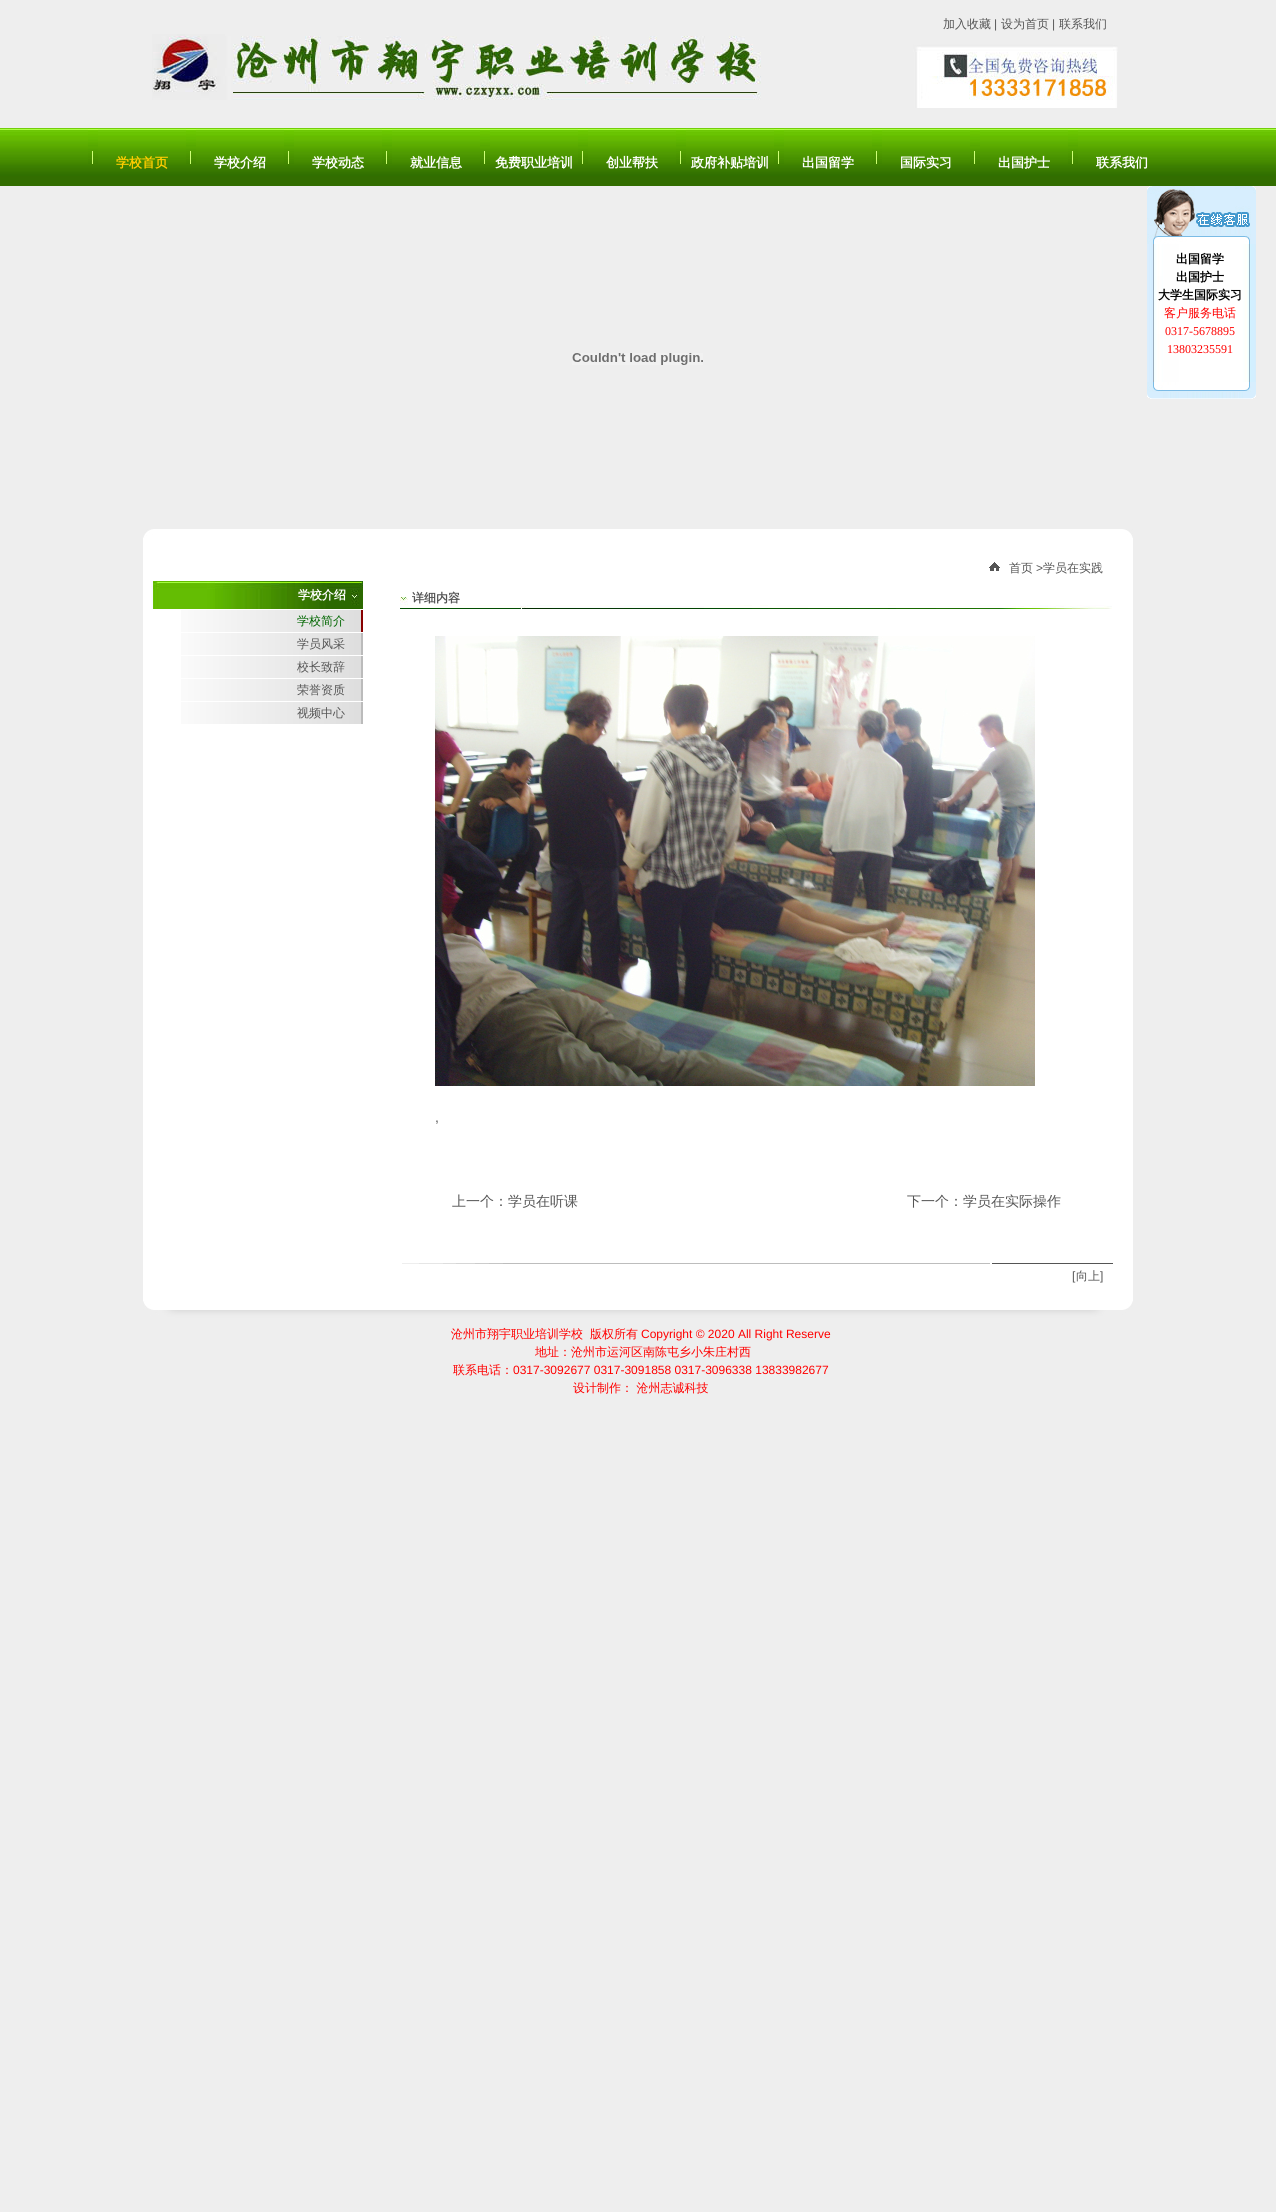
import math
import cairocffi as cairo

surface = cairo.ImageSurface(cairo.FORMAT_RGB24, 1276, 2212)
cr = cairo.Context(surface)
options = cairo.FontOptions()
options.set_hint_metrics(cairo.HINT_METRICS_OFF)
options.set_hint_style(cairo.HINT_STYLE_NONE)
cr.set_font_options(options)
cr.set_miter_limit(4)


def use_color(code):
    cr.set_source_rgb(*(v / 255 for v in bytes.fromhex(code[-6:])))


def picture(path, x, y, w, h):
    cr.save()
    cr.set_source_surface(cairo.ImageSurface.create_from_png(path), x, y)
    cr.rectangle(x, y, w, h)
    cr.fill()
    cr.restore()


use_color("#eeeeee")
cr.paint()
picture("img1.png", 152, 34, 966, 74)
cr.select_font_face("WenQuanYi Zen Hei Medium")
cr.set_font_size(12)
use_color("#555555")
cr.move_to(943, 28)
cr.show_text("加入收藏")
cr.select_font_face("Liberation Sans")
cr.move_to(994, 28)
cr.show_text("|")
cr.select_font_face("WenQuanYi Zen Hei Medium")
cr.move_to(1001, 28)
cr.show_text("设为首页")
cr.select_font_face("Liberation Sans")
cr.move_to(1052, 28)
cr.show_text("|")
cr.select_font_face("WenQuanYi Zen Hei Medium")
cr.move_to(1059, 28)
cr.show_text("联系我们")
picture("img2.png", 0, 128, 1276, 58)
picture("img3.png", 88, 128, 1100, 58)
picture("img4.png", 88, 128, 10, 36)
cr.select_font_face("WenQuanYi Zen Hei", cairo.FONT_SLANT_NORMAL, cairo.FONT_WEIGHT_BOLD)
cr.set_font_size(13)
use_color("#ffcc00")
cr.move_to(116, 167)
cr.show_text("学校首页")
picture("img4.png", 186, 128, 10, 36)
use_color("#ffffff")
cr.move_to(214, 167)
cr.show_text("学校介绍")
picture("img4.png", 284, 128, 10, 36)
cr.move_to(312, 167)
cr.show_text("学校动态")
picture("img4.png", 382, 128, 10, 36)
cr.move_to(410, 167)
cr.show_text("就业信息")
picture("img4.png", 480, 128, 10, 36)
cr.move_to(495, 167)
cr.show_text("免费职业培训")
picture("img4.png", 578, 128, 10, 36)
cr.move_to(606, 167)
cr.show_text("创业帮扶")
picture("img4.png", 676, 128, 10, 36)
cr.move_to(691, 167)
cr.show_text("政府补贴培训")
picture("img4.png", 774, 128, 10, 36)
cr.move_to(802, 167)
cr.show_text("出国留学")
picture("img4.png", 872, 128, 10, 36)
cr.move_to(900, 167)
cr.show_text("国际实习")
picture("img4.png", 970, 128, 10, 36)
cr.move_to(998, 167)
cr.show_text("出国护士")
picture("img4.png", 1068, 128, 10, 36)
cr.move_to(1096, 167)
cr.show_text("联系我们")
picture("img5.png", 1147, 186, 109, 58)
picture("img6.png", 1147, 244, 109, 138)
cr.set_font_size(12)
use_color("#000000")
cr.move_to(1176, 263)
cr.show_text("出国留学")
cr.move_to(1176, 281)
cr.show_text("出国护士")
cr.move_to(1158, 299)
cr.show_text("大学生国际实习")
cr.select_font_face("WenQuanYi Zen Hei Medium")
use_color("#ff0000")
cr.move_to(1164, 317)
cr.show_text("客户服务电话")
cr.select_font_face("Liberation Serif")
cr.move_to(1165, 335)
cr.show_text("0317-5678895")
cr.move_to(1167, 353)
cr.show_text("13803235591")
picture("img7.png", 1147, 382, 109, 17)
picture("img8.png", 572, 353, 131, 12)
use_color("#ffffff")
cr.rectangle(143, 538, 990, 763)
cr.fill()
picture("img9.png", 143, 529, 990, 9)
picture("img10.png", 989, 562, 11, 9)
cr.select_font_face("WenQuanYi Zen Hei Medium")
use_color("#555555")
cr.move_to(1009, 572)
cr.show_text("首页")
cr.select_font_face("Liberation Sans")
cr.move_to(1036, 572)
cr.show_text(">")
cr.select_font_face("WenQuanYi Zen Hei Medium")
cr.move_to(1043, 572)
cr.show_text("学员在实践")
picture("img11.png", 151, 581, 212, 28)
cr.select_font_face("WenQuanYi Zen Hei", cairo.FONT_SLANT_NORMAL, cairo.FONT_WEIGHT_BOLD)
use_color("#ffffff")
cr.move_to(298, 599)
cr.show_text("学校介绍")
picture("img12.png", 181, 610, 182, 22)
cr.select_font_face("WenQuanYi Zen Hei Medium")
use_color("#006600")
cr.move_to(297, 625)
cr.show_text("学校简介")
picture("img13.png", 181, 633, 182, 22)
use_color("#555555")
cr.move_to(297, 648)
cr.show_text("学员风采")
picture("img13.png", 181, 656, 182, 22)
cr.move_to(297, 671)
cr.show_text("校长致辞")
picture("img13.png", 181, 679, 182, 22)
cr.move_to(297, 694)
cr.show_text("荣誉资质")
picture("img13.png", 181, 702, 182, 22)
cr.move_to(297, 717)
cr.show_text("视频中心")
picture("img14.png", 400, 597, 712, 12)
cr.select_font_face("WenQuanYi Zen Hei", cairo.FONT_SLANT_NORMAL, cairo.FONT_WEIGHT_BOLD)
cr.move_to(412, 602)
cr.show_text("详细内容")
picture("img15.png", 435, 636, 600, 450)
cr.select_font_face("Liberation Sans")
cr.set_font_size(14)
cr.move_to(435, 1122)
cr.show_text(",")
cr.select_font_face("WenQuanYi Zen Hei Medium")
cr.move_to(452, 1206)
cr.show_text("上一个：学员在听课")
cr.move_to(907, 1206)
cr.show_text("下一个：学员在实际操作")
picture("img16.png", 402, 1263, 711, 1)
cr.select_font_face("Liberation Sans")
cr.set_font_size(12)
cr.move_to(1072, 1280)
cr.show_text("[")
cr.select_font_face("WenQuanYi Zen Hei Medium")
cr.move_to(1076, 1280)
cr.show_text("向上")
cr.select_font_face("Liberation Sans")
cr.move_to(1100, 1280)
cr.show_text("]")
picture("img17.png", 143, 1301, 990, 24)
cr.select_font_face("WenQuanYi Zen Hei Medium")
use_color("#ff0000")
cr.move_to(451, 1338)
cr.show_text("沧州市翔宇职业培训学校")
cr.move_to(590, 1338)
cr.show_text("版权所有")
cr.select_font_face("Liberation Sans")
cr.move_to(641, 1338)
cr.show_text("Copyright © 2020 All Right Reserve")
cr.select_font_face("WenQuanYi Zen Hei Medium")
cr.move_to(535, 1356)
cr.show_text("地址：沧州市运河区南陈屯乡小朱庄村西")
cr.move_to(453, 1374)
cr.show_text("联系电话：")
cr.select_font_face("Liberation Sans")
cr.move_to(513, 1374)
cr.show_text("0317-3092677 0317-3091858 0317-3096338 13833982677")
cr.select_font_face("WenQuanYi Zen Hei Medium")
cr.move_to(573, 1392)
cr.show_text("设计制作： 沧州志诚科技")
surface.write_to_png("result.png")
